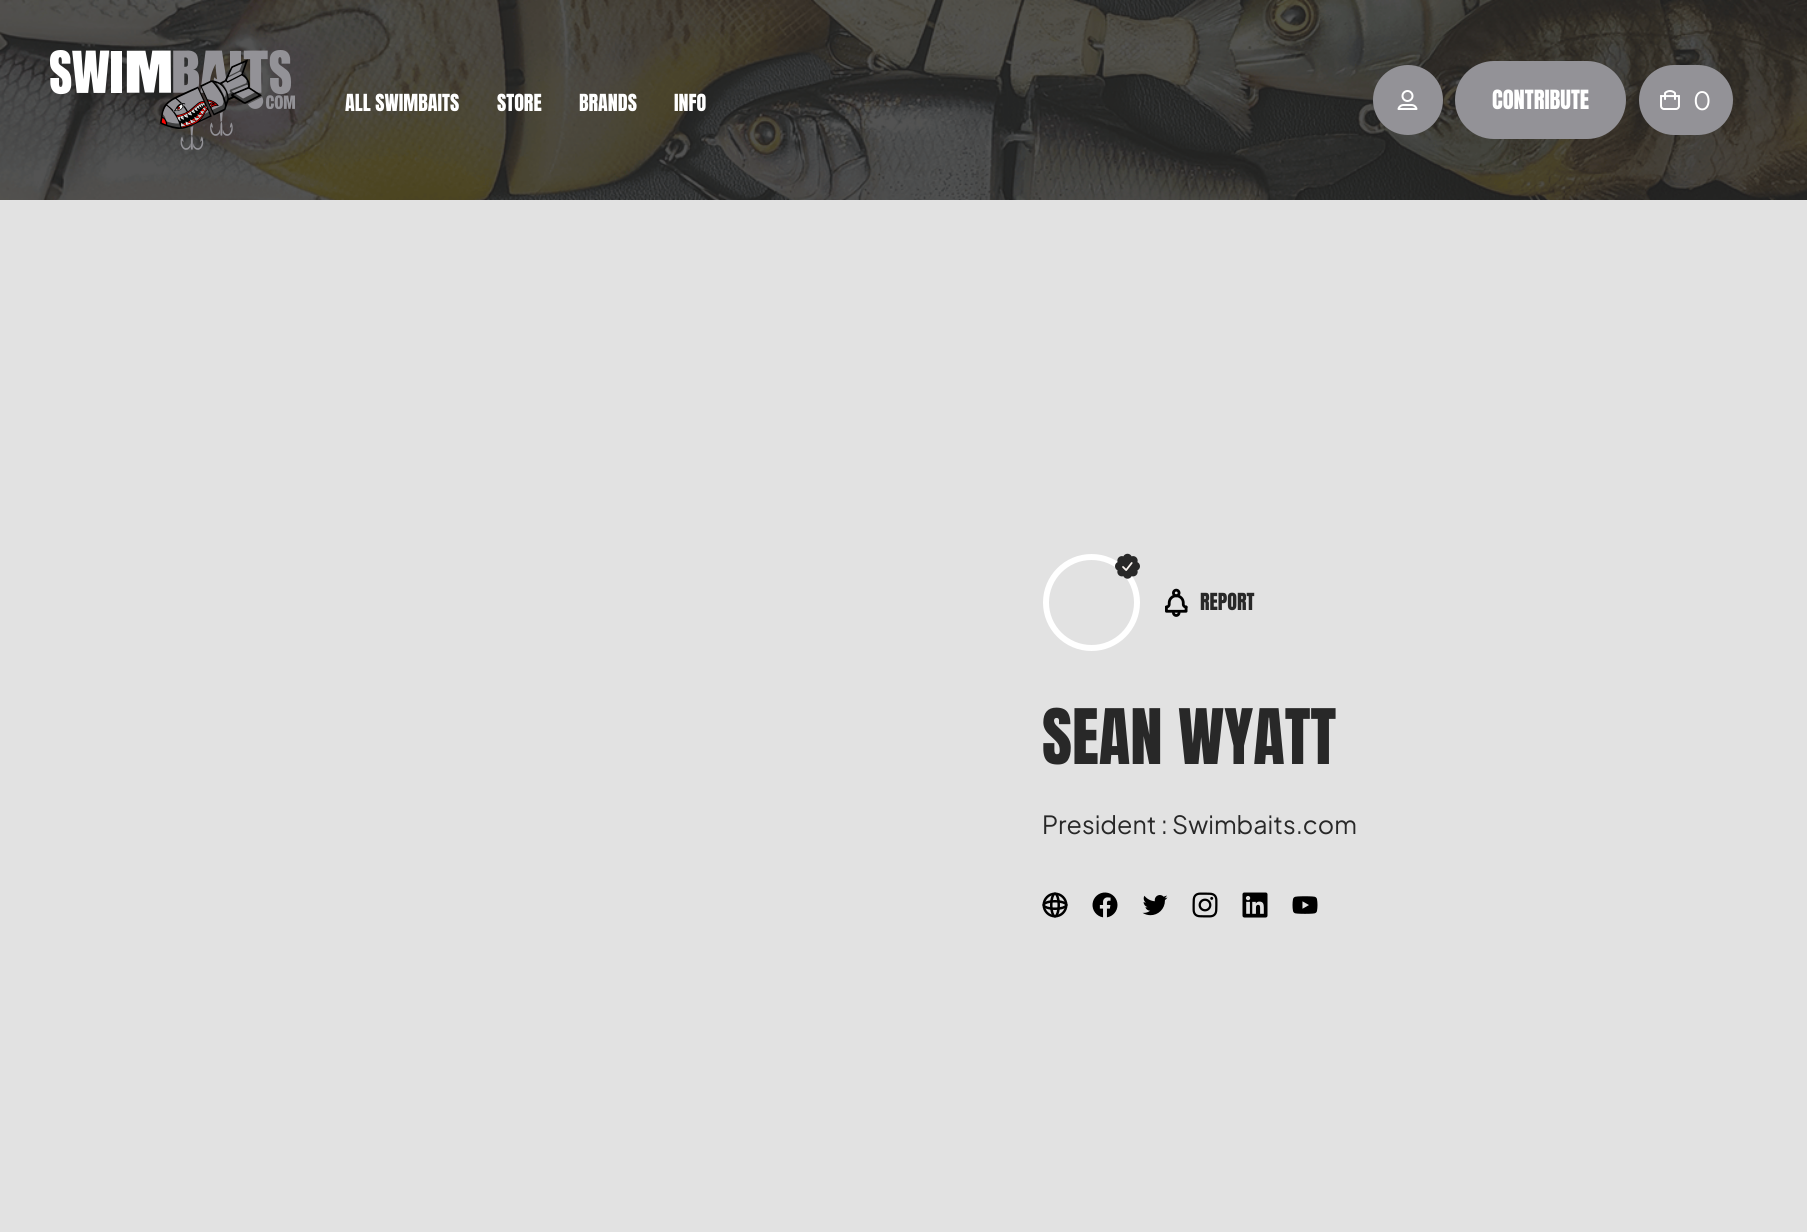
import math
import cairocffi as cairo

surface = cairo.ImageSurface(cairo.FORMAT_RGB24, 1807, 1232)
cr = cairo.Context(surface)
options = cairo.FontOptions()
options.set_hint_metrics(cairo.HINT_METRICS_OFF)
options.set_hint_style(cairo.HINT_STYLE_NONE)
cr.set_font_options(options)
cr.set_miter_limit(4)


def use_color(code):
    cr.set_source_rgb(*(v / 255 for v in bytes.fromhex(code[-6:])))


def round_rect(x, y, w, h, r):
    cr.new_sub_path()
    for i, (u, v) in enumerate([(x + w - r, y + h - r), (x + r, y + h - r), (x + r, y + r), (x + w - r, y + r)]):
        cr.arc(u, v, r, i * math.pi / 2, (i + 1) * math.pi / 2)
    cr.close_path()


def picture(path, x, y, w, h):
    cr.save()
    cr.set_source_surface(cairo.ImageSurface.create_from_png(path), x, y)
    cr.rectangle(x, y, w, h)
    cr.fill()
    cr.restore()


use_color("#e2e2e2")
cr.paint()
picture("img1.png", 0, 0, 1807, 200)
picture("img2.png", 50, 50, 245, 100)
cr.select_font_face("Anton")
cr.set_font_size(20)
use_color("#ffffff")
cr.move_to(345, 111)
cr.show_text("ALL SWIMBAITS")
cr.move_to(497, 111)
cr.show_text("STORE")
cr.move_to(579, 111)
cr.show_text("BRANDS")
cr.move_to(674, 111)
cr.show_text("INFO")
use_color("#939297")
cr.new_path()
cr.arc(1408, 100, 33.5, 0, 2 * math.pi)
cr.fill_preserve()
cr.set_line_width(3)
cr.stroke()
picture("img3.png", 1397, 90, 21, 20)
round_rect(1456.5, 62.5, 168, 75, 37.5)
cr.fill_preserve()
cr.stroke()
cr.set_font_size(22.5)
use_color("#ffffff")
cr.move_to(1492, 109)
cr.show_text("CONTRIBUTE")
use_color("#939297")
round_rect(1640.5, 66.5, 91, 67, 33.5)
cr.fill_preserve()
cr.stroke()
picture("img4.png", 1660, 90, 20, 20)
cr.select_font_face("Plus Jakarta Sans")
cr.set_font_size(25)
use_color("#ffffff")
cr.move_to(1693, 110)
cr.show_text("0")
cr.new_path()
cr.arc(1091.5, 602.5, 45.5, 0, 2 * math.pi)
cr.set_line_width(6)
cr.stroke()
picture("img5.png", 1115, 553, 25, 26)
picture("img6.png", 1165, 588, 23, 29)
cr.select_font_face("Anton")
cr.set_font_size(20)
use_color("#282828")
cr.move_to(1200, 610)
cr.show_text("REPORT")
cr.set_font_size(65)
cr.move_to(1042, 764)
cr.show_text("SEAN WYATT")
cr.select_font_face("Plus Jakarta Sans")
cr.set_font_size(25)
cr.move_to(1042, 834)
cr.show_text("President : Swimbaits.com")
picture("img7.png", 1042, 892, 26, 26)
picture("img8.png", 1092, 892, 26, 26)
picture("img9.png", 1142, 895, 26, 21)
picture("img10.png", 1192, 892, 26, 26)
picture("img11.png", 1242, 892, 26, 26)
picture("img12.png", 1292, 896, 26, 18)
surface.write_to_png("result.png")
